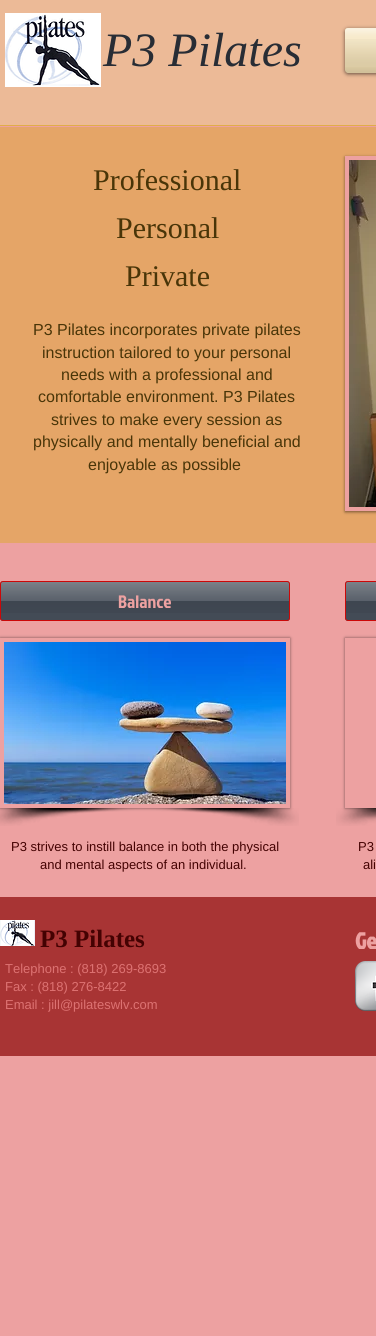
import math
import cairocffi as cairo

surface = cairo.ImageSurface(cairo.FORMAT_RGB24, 376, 1336)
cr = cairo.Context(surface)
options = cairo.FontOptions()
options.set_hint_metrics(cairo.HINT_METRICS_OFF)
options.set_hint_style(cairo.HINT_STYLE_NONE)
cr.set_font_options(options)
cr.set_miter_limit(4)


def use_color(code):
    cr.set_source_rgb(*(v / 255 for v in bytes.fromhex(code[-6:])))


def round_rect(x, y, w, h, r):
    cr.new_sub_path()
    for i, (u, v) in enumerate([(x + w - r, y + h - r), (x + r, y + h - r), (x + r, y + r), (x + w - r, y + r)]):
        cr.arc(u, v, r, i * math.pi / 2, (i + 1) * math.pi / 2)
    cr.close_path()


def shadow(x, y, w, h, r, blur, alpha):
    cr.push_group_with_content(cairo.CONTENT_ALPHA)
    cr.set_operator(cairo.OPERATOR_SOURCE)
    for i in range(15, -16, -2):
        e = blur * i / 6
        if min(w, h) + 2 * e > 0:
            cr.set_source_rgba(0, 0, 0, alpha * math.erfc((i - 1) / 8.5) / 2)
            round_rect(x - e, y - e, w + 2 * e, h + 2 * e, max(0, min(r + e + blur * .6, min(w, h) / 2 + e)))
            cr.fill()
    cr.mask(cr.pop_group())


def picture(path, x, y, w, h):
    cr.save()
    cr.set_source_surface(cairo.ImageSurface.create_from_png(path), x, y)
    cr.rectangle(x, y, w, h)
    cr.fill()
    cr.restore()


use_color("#eda1a1")
cr.paint()
use_color("#ecba97")
cr.rectangle(0, 0, 376, 125)
cr.fill()
use_color("#e1ad48")
cr.rectangle(0, 125, 376, 1)
cr.fill()
picture("img1.png", 5, 13, 96, 74)
cr.select_font_face("Liberation Serif", cairo.FONT_SLANT_ITALIC)
cr.set_font_size(48)
use_color("#282d35")
cr.move_to(103, 66)
cr.show_text("P3 Pilates")
use_color("#000000")
shadow(345, 29, 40, 45, 3, 2, 0.6)
picture("img2.png", 345, 28, 3, 3)
picture("img3.png", 345, 70, 3, 3)
use_color("#f3e0b3")
cr.new_path()
cr.move_to(348, 28)
cr.line_to(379, 28)
cr.line_to(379, 73)
cr.line_to(348, 73)
cr.curve_to(346.5, 73, 345, 71.5, 345, 70)
cr.line_to(345, 31)
cr.curve_to(345, 29.5, 346.5, 28, 348, 28)
cr.close_path()
cr.fill()
picture("img4.png", 345, 28, 31, 39)
picture("img5.png", 345, 39, 31, 34)
use_color("#e5a567")
cr.rectangle(0, 127, 376, 416)
cr.fill()
cr.select_font_face("Liberation Serif")
cr.set_font_size(30)
use_color("#493508")
cr.move_to(93, 190)
cr.show_text("Professional")
cr.move_to(116, 238)
cr.show_text("Personal")
cr.move_to(125, 286)
cr.show_text("Private")
cr.select_font_face("Liberation Sans")
cr.set_font_size(16)
cr.move_to(33, 335)
cr.show_text("P3 Pilates incorporates private pilates")
cr.move_to(42, 358)
cr.show_text("instruction tailored to your personal")
cr.move_to(61, 380)
cr.show_text("needs with a professional and")
cr.move_to(38, 402)
cr.show_text("comfortable environment. P3 Pilates")
cr.move_to(51, 425)
cr.show_text("strives to make every session as")
cr.move_to(33, 447)
cr.show_text("physically and mentally beneficial and")
cr.move_to(88, 470)
cr.show_text("enjoyable as possible")
use_color("#000000")
shadow(345, 157, 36, 355, 0, 1.5, 0.5)
use_color("#eda1a1")
cr.rectangle(345, 156, 31, 355)
cr.fill()
picture("img6.png", 349, 160, 27, 347)
use_color("#434b56")
round_rect(0, 581, 290, 40, 3)
cr.fill()
picture("img7.png", 0, 581, 290, 32)
round_rect(0.5, 581.5, 289, 39, 2.5)
use_color("#cc0808")
cr.set_line_width(1)
cr.stroke()
cr.select_font_face("Jockey One")
cr.set_font_size(18)
use_color("#eda1a1")
cr.move_to(118, 608)
cr.show_text("Balance")
use_color("#434b56")
round_rect(345, 581, 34, 40, 3)
cr.fill()
picture("img8.png", 345, 581, 31, 32)
round_rect(345.5, 581.5, 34, 39, 2.5)
use_color("#cc0808")
cr.stroke()
cr.save()
cr.set_fill_rule(cairo.FILL_RULE_EVEN_ODD)
cr.new_path()
cr.move_to(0, 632)
cr.line_to(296, 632)
cr.line_to(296, 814)
cr.line_to(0, 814)
cr.close_path()
cr.move_to(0, 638)
cr.line_to(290, 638)
cr.line_to(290, 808)
cr.line_to(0, 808)
cr.close_path()
cr.clip()
use_color("#000000")
shadow(0, 638, 290, 170, 0, 1.5, 0.5)
cr.restore()
picture("img9.png", 4, 642, 282, 162)
picture("img10.png", 0, 808, 145, 18)
picture("img11.png", 145, 808, 154, 18)
cr.save()
cr.set_fill_rule(cairo.FILL_RULE_EVEN_ODD)
cr.new_path()
cr.move_to(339, 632)
cr.line_to(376, 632)
cr.line_to(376, 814)
cr.line_to(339, 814)
cr.close_path()
cr.move_to(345, 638)
cr.line_to(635, 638)
cr.line_to(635, 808)
cr.line_to(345, 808)
cr.close_path()
cr.clip()
use_color("#000000")
shadow(345, 638, 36, 170, 0, 1.5, 0.5)
cr.restore()
picture("img12.png", 336, 808, 40, 18)
cr.select_font_face("Liberation Sans")
cr.set_font_size(13)
use_color("#440202")
cr.move_to(11, 851)
cr.show_text("P3 strives to instill balance in both the physical")
cr.move_to(40, 869)
cr.show_text("and mental aspects of an individual.")
cr.move_to(358, 851)
cr.show_text("P3")
cr.move_to(363, 869)
cr.show_text("ali")
use_color("#a83434")
cr.rectangle(0, 897, 376, 159)
cr.fill()
picture("img13.png", 0, 920, 35, 26)
cr.select_font_face("Liberation Serif", cairo.FONT_SLANT_NORMAL, cairo.FONT_WEIGHT_BOLD)
cr.set_font_size(25)
use_color("#440202")
cr.move_to(40, 947)
cr.show_text("P3 Pilates")
cr.select_font_face("Jockey One", cairo.FONT_SLANT_NORMAL, cairo.FONT_WEIGHT_BOLD)
cr.set_font_size(23)
use_color("#eda1a1")
cr.move_to(355, 949)
cr.show_text("Ge")
cr.select_font_face("Liberation Sans")
cr.set_font_size(13)
use_color("#dd7272")
cr.move_to(5, 973)
cr.show_text("Telephone : (818) 269-8693")
cr.move_to(5, 991)
cr.show_text("Fax : (818) 276-8422")
cr.move_to(5, 1009)
cr.show_text("Email : jill@pilateswlv.com")
picture("img14.png", 355, 961, 21, 50)
surface.write_to_png("result.png")
